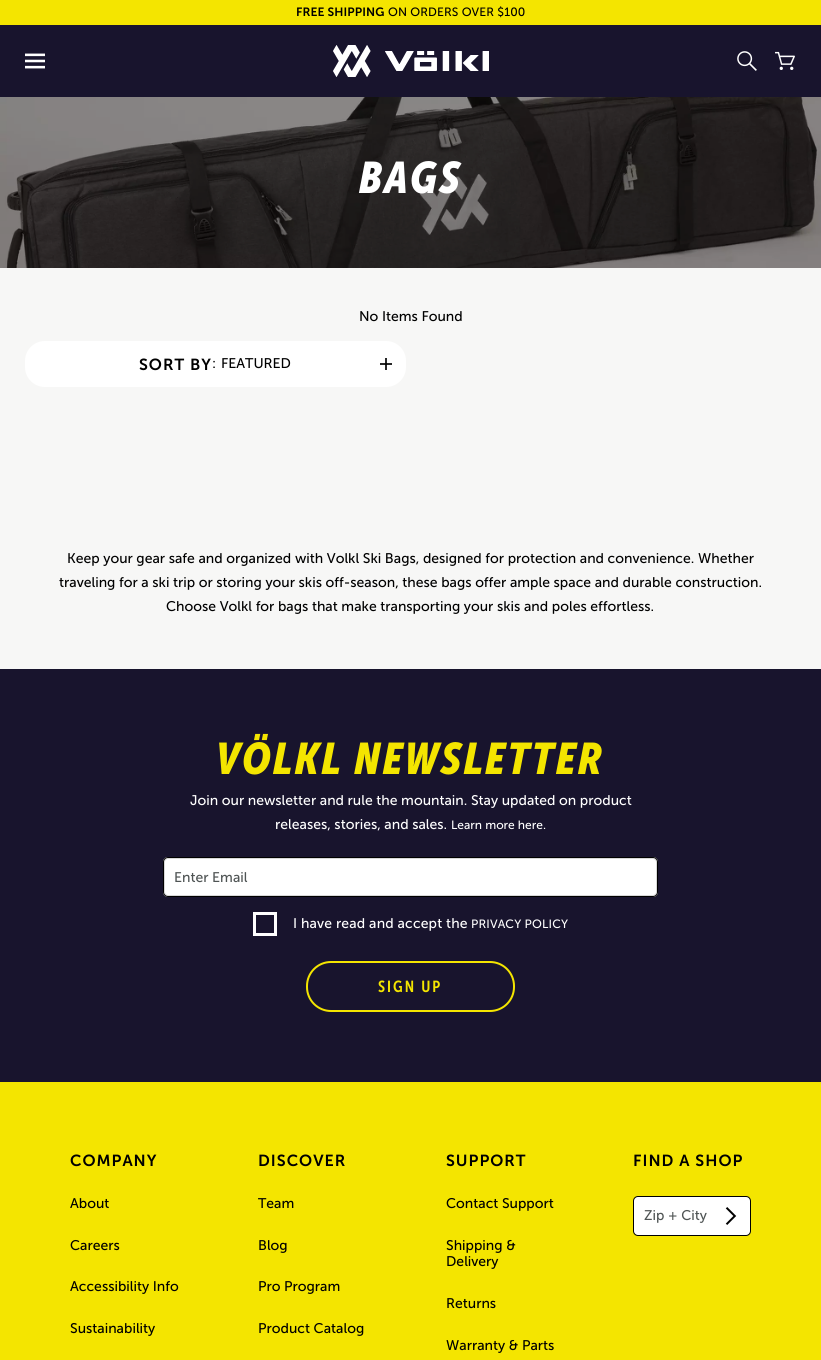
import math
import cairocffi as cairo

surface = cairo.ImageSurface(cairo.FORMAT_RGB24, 821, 1360)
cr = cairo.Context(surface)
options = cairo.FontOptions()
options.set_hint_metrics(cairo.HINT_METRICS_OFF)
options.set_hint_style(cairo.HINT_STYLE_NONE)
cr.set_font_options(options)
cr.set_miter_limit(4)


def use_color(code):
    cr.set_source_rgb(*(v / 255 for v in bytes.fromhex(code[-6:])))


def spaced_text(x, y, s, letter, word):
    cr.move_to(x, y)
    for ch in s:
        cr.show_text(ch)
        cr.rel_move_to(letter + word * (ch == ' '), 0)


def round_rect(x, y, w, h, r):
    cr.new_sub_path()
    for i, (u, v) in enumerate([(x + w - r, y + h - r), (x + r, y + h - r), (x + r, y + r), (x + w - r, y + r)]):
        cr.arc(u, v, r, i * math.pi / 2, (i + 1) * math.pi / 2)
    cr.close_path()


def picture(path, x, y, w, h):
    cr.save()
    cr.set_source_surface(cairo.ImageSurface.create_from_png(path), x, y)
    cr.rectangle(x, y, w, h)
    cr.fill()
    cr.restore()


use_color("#f7f7f6")
cr.paint()
use_color("#f4e500")
cr.rectangle(0, 0, 821, 25)
cr.fill()
cr.select_font_face("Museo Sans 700 SemiBold")
cr.set_font_size(12)
use_color("#000000")
spaced_text(296, 16, "FREE SHIPPING", 0.1, 0)
cr.select_font_face("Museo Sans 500")
spaced_text(388, 16, "ON ORDERS OVER $100", 0.1, 0)
use_color("#18142d")
cr.rectangle(0, 25, 821, 72)
cr.fill()
picture("img1.png", 25, 53, 20, 16)
picture("img2.png", 333, 45, 156, 32)
picture("img3.png", 737, 51, 20, 20)
picture("img4.png", 775, 51, 20, 19)
picture("img5.png", 0, 97, 821, 171)
cr.select_font_face("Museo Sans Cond", cairo.FONT_SLANT_ITALIC, cairo.FONT_WEIGHT_BOLD)
cr.set_font_size(44)
use_color("#ffffff")
spaced_text(359, 193, "BAGS", 2.4, 0)
cr.select_font_face("Museo Sans 500")
cr.set_font_size(14)
use_color("#000000")
cr.move_to(359, 321)
cr.show_text("No Items Found")
use_color("#ffffff")
round_rect(25, 341, 381, 46, 20)
cr.fill()
cr.select_font_face("Museo Sans 700 SemiBold")
cr.set_font_size(16)
use_color("#000000")
spaced_text(139, 370, "SORT BY", 1, 0)
cr.select_font_face("Museo Sans 500")
cr.set_font_size(14)
cr.move_to(212, 368)
cr.show_text(":")
cr.move_to(221, 368)
cr.show_text("FEATURED")
picture("img6.png", 380, 358, 12, 12)
cr.move_to(67, 563)
cr.show_text("Keep your gear safe and organized with Volkl Ski Bags, designed for protection and convenience. Whether")
cr.move_to(59, 587)
cr.show_text("traveling for a ski trip or storing your skis off-season, these bags offer ample space and durable construction.")
cr.move_to(166, 611)
cr.show_text("Choose Volkl for bags that make transporting your skis and poles effortless.")
use_color("#f4e500")
cr.rectangle(0, 1082, 821, 278)
cr.fill()
use_color("#18142d")
cr.rectangle(0, 669, 821, 413)
cr.fill()
cr.select_font_face("Museo Sans Cond", cairo.FONT_SLANT_ITALIC, cairo.FONT_WEIGHT_BOLD)
cr.set_font_size(44)
use_color("#f4e500")
spaced_text(216, 774, "VÖLKL NEWSLETTER", 2.4, 0)
cr.select_font_face("Museo Sans 500")
cr.set_font_size(14)
use_color("#ffffff")
cr.move_to(190, 805)
cr.show_text("Join our newsletter and rule the mountain. Stay updated on product")
cr.move_to(275, 829)
cr.show_text("releases, stories, and sales.")
cr.set_font_size(12)
cr.move_to(451, 829)
cr.show_text("Learn more here.")
round_rect(163, 857, 495, 40, 5)
cr.fill()
round_rect(164.5, 858.5, 492, 37, 3.5)
use_color("#d8d8d8")
cr.set_line_width(1)
cr.stroke()
round_rect(163.5, 857.5, 494, 39, 4.5)
use_color("#000000")
cr.stroke()
cr.set_font_size(14)
use_color("#4f5454")
cr.move_to(174, 882)
cr.show_text("Enter Email")
cr.rectangle(254.5, 913.5, 21, 21)
use_color("#ffffff")
cr.set_line_width(3)
cr.stroke()
spaced_text(293, 928, "I have read and accept the", 0.15, 0)
cr.set_font_size(12)
spaced_text(471, 928, "PRIVACY POLICY", 0.15, 0)
round_rect(307, 962, 207, 49, 24)
use_color("#f4e500")
cr.set_line_width(2)
cr.stroke()
cr.select_font_face("Museo Sans Cond SemiBold")
cr.set_font_size(16)
spaced_text(378, 992, "SIGN UP", 2, 0)
cr.select_font_face("Museo Sans 700 SemiBold")
use_color("#000000")
spaced_text(70, 1166, "COMPANY", 1, 0)
cr.select_font_face("Museo Sans 500")
cr.set_font_size(14)
cr.move_to(70, 1208)
cr.show_text("About")
cr.move_to(70, 1250)
cr.show_text("Careers")
cr.move_to(70, 1291)
cr.show_text("Accessibility Info")
cr.move_to(70, 1333)
cr.show_text("Sustainability")
cr.select_font_face("Museo Sans 700 SemiBold")
cr.set_font_size(16)
spaced_text(258, 1166, "DISCOVER", 1, 0)
cr.select_font_face("Museo Sans 500")
cr.set_font_size(14)
cr.move_to(258, 1208)
cr.show_text("Team")
cr.move_to(258, 1250)
cr.show_text("Blog")
cr.move_to(258, 1291)
cr.show_text("Pro Program")
cr.move_to(258, 1333)
cr.show_text("Product Catalog")
cr.select_font_face("Museo Sans 700 SemiBold")
cr.set_font_size(16)
spaced_text(446, 1166, "SUPPORT", 1, 0)
cr.select_font_face("Museo Sans 500")
cr.set_font_size(14)
cr.move_to(446, 1208)
cr.show_text("Contact Support")
cr.move_to(446, 1250)
cr.show_text("Shipping &")
cr.move_to(446, 1266)
cr.show_text("Delivery")
cr.move_to(446, 1308)
cr.show_text("Returns")
cr.move_to(446, 1350)
cr.show_text("Warranty & Parts")
cr.select_font_face("Museo Sans 700 SemiBold")
cr.set_font_size(16)
spaced_text(633, 1166, "FIND A SHOP", 1, 0)
use_color("#ffffff")
round_rect(633.5, 1196.5, 117, 39, 4.5)
cr.fill_preserve()
use_color("#000000")
cr.set_line_width(1)
cr.stroke()
cr.select_font_face("Museo Sans 500")
cr.set_font_size(14)
use_color("#4f5454")
cr.move_to(644, 1220)
cr.show_text("Zip + City")
picture("img7.png", 725, 1207, 12, 18)
surface.write_to_png("result.png")
